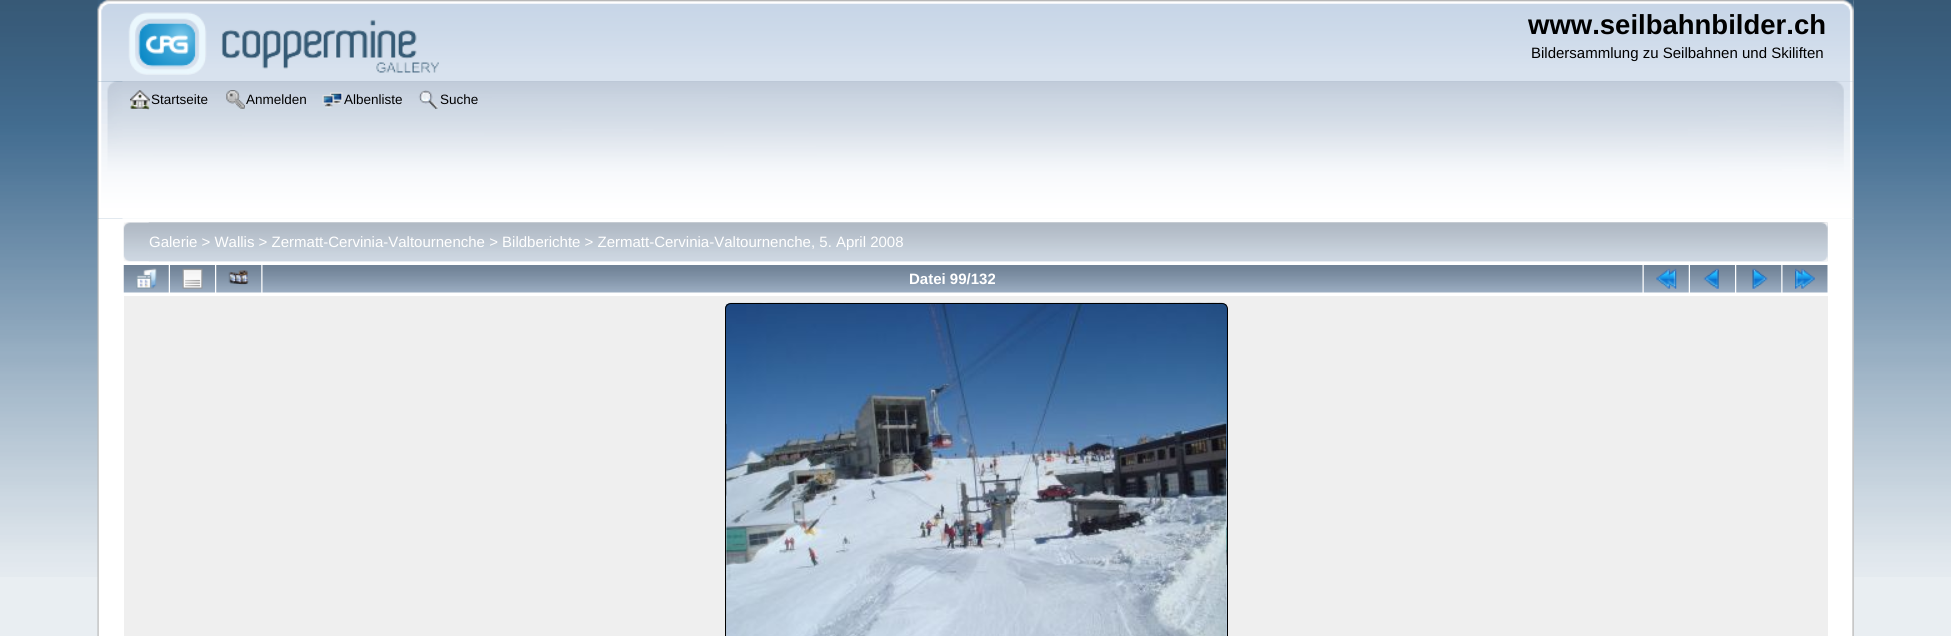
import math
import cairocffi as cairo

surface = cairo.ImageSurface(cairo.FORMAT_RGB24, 1951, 636)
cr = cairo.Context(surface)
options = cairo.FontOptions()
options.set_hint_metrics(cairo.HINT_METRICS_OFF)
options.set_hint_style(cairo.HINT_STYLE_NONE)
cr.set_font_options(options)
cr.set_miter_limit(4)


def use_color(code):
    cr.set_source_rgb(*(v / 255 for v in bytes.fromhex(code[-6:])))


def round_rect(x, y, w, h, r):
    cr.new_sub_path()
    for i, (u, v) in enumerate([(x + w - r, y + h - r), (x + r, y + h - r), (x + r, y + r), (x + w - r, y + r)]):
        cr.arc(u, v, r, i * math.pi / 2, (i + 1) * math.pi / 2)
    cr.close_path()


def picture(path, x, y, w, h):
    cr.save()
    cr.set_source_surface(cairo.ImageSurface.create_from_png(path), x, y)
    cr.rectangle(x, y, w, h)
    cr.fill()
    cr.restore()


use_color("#e9eef2")
cr.paint()
picture("img1.png", 0, 0, 1951, 577)
picture("img2.png", 97, 0, 1757, 82)
picture("img3.png", 122, 0, 1732, 82)
picture("img4.png", 128, 12, 311, 63)
cr.select_font_face("Liberation Sans", cairo.FONT_SLANT_NORMAL, cairo.FONT_WEIGHT_BOLD)
cr.set_font_size(27.5)
use_color("#000000")
cr.move_to(1528, 34)
cr.show_text("www.seilbahnbilder.ch")
cr.select_font_face("Liberation Sans")
cr.set_font_size(15)
cr.move_to(1531, 58)
cr.show_text("Bildersammlung zu Seilbahnen und Skiliften")
picture("img5.png", 97, 81, 1757, 138)
picture("img6.png", 122, 81, 1732, 138)
picture("img7.png", 130, 90, 20, 20)
cr.set_font_size(13.5)
cr.move_to(151, 104)
cr.show_text("Startseite")
picture("img8.png", 226, 90, 19, 19)
cr.move_to(246, 104)
cr.show_text("Anmelden")
picture("img9.png", 322, 92, 21, 16)
cr.move_to(344, 104)
cr.show_text("Albenliste")
picture("img10.png", 418, 90, 20, 19)
cr.move_to(440, 104)
cr.show_text("Suche")
picture("img11.png", 97, 218, 1757, 418)
picture("img12.png", 1852, 218, 2, 418)
picture("img13.png", 123, 222, 1705, 40)
picture("img14.png", 148, 222, 1680, 40)
cr.set_font_size(15)
use_color("#ffffff")
cr.move_to(149, 247)
cr.show_text("Galerie > Wallis > Zermatt-Cervinia-Valtournenche > Bildberichte > Zermatt-Cervinia-Valtournenche, 5. April 2008")
picture("img15.png", 123, 265, 46, 28)
picture("img16.png", 136, 268, 21, 21)
picture("img17.png", 170, 265, 45, 28)
picture("img18.png", 182, 268, 21, 21)
picture("img19.png", 216, 265, 46, 28)
picture("img20.png", 228, 270, 21, 15)
picture("img21.png", 262, 265, 1381, 28)
cr.select_font_face("Liberation Sans", cairo.FONT_SLANT_NORMAL, cairo.FONT_WEIGHT_BOLD)
cr.move_to(909, 284)
cr.show_text("Datei 99/132")
picture("img15.png", 1643, 265, 46, 28)
picture("img22.png", 1656, 268, 21, 21)
picture("img17.png", 1690, 265, 45, 28)
picture("img23.png", 1703, 268, 16, 21)
picture("img19.png", 1736, 265, 46, 28)
picture("img24.png", 1752, 268, 16, 21)
picture("img25.png", 1782, 265, 46, 28)
picture("img26.png", 1795, 268, 20, 21)
use_color("#efefef")
cr.rectangle(124, 296, 1704, 340)
cr.fill()
picture("img27.png", 725, 302, 503, 334)
round_rect(725.5, 303.5, 502, 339, 5.5)
use_color("#000000")
cr.set_line_width(1)
cr.stroke()
surface.write_to_png("result.png")
